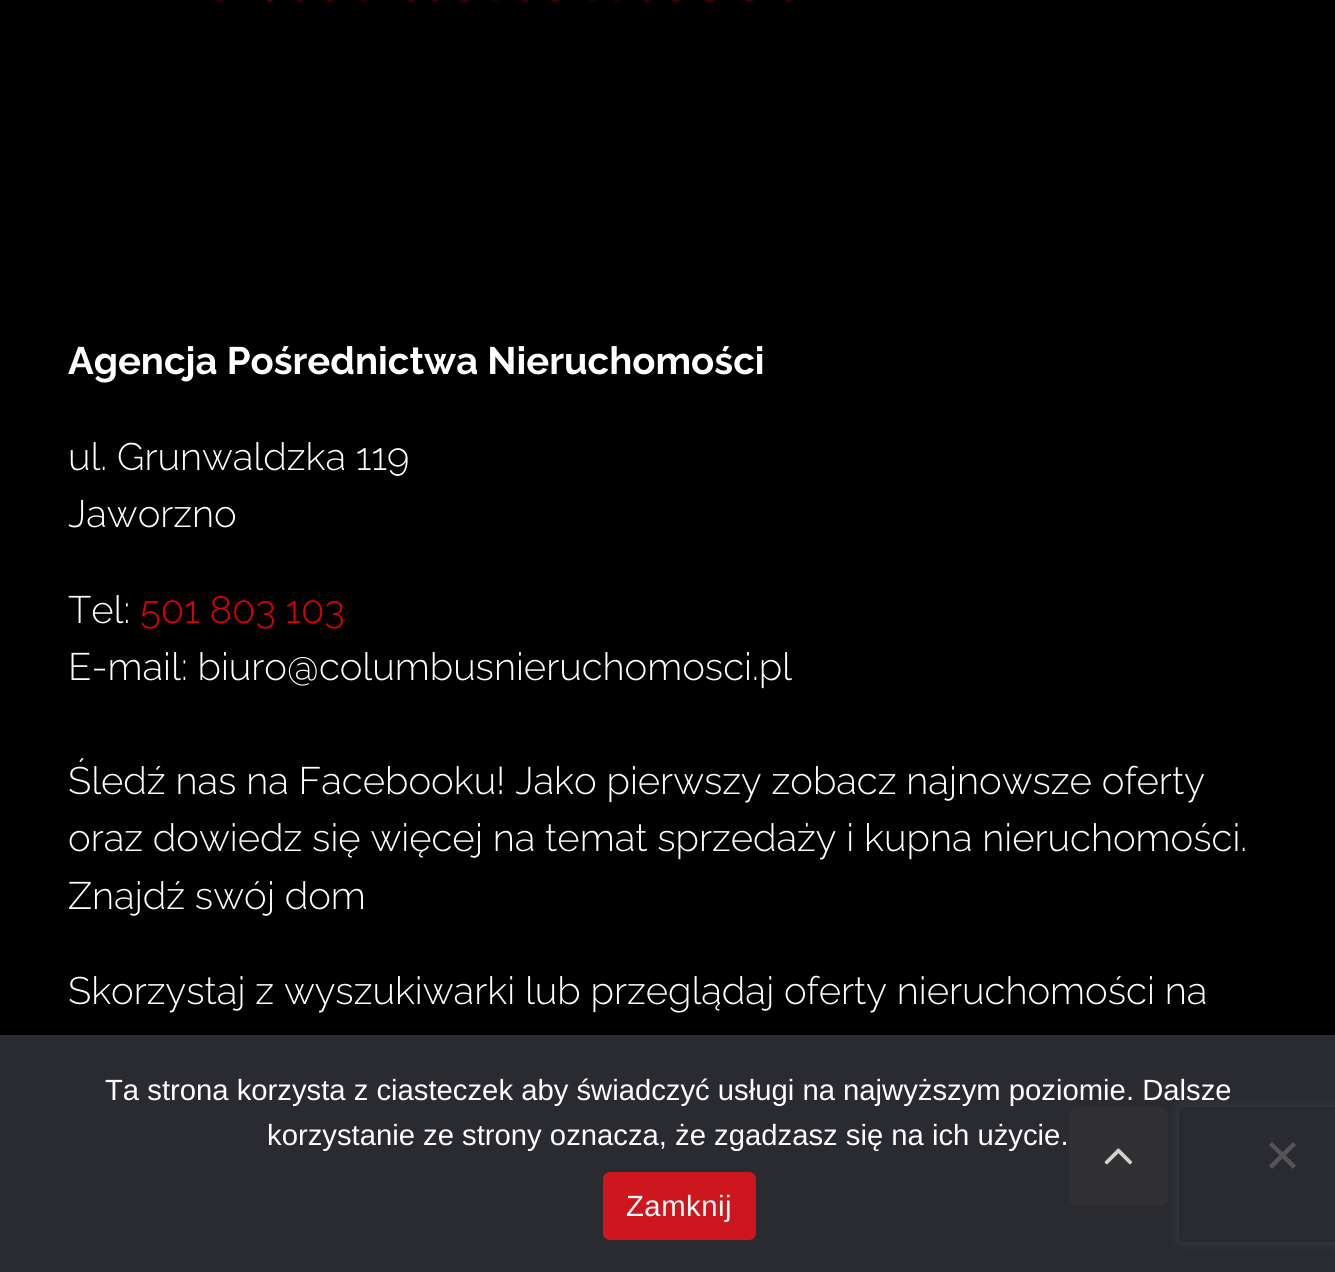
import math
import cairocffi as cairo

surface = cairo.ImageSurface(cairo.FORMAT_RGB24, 1335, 1272)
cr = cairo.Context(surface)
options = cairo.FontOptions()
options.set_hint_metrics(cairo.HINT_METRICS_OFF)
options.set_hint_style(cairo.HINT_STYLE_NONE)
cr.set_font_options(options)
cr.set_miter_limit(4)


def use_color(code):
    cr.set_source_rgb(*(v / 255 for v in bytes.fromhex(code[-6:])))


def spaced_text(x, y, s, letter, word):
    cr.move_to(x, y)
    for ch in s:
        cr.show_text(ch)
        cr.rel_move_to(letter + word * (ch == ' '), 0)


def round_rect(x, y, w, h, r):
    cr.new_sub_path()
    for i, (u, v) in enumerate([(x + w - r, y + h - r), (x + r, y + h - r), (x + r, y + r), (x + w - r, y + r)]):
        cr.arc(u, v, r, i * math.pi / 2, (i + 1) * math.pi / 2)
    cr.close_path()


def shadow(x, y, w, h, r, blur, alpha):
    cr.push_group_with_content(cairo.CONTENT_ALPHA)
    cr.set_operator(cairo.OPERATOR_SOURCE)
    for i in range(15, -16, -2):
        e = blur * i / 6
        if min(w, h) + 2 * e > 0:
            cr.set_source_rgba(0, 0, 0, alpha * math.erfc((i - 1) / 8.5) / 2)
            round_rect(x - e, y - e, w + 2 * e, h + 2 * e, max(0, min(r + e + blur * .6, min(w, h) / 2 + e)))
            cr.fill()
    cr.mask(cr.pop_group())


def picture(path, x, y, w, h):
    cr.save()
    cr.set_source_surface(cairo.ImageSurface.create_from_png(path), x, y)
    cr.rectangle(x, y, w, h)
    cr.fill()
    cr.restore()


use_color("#000000")
cr.paint()
picture("img1.png", 215, 0, 578, 3)
cr.select_font_face("Raleway", cairo.FONT_SLANT_NORMAL, cairo.FONT_WEIGHT_BOLD)
cr.set_font_size(38.25)
use_color("#ffffff")
cr.move_to(68, 374)
cr.show_text("Agencja Pośrednictwa Nieruchomości")
cr.select_font_face("Raleway Light")
cr.move_to(68, 470)
cr.show_text("ul. Grunwaldzka 119")
cr.move_to(68, 527)
cr.show_text("Jaworzno")
cr.move_to(68, 623)
cr.show_text("Tel:")
use_color("#e20000")
cr.move_to(140, 623)
cr.show_text("501 803 103")
use_color("#ffffff")
cr.move_to(68, 680)
cr.show_text("E-mail: biuro@columbusnieruchomosci.pl")
cr.move_to(68, 794)
cr.show_text("Śledź nas na Facebooku! Jako pierwszy zobacz najnowsze oferty")
cr.move_to(68, 851)
cr.show_text("oraz dowiedz się więcej na temat sprzedaży i kupna nieruchomości.")
cr.move_to(68, 909)
cr.show_text("Znajdź swój dom")
cr.move_to(68, 1004)
cr.show_text("Skorzystaj z wyszukiwarki lub przeglądaj oferty nieruchomości na")
cr.save()
cr.set_fill_rule(cairo.FILL_RULE_EVEN_ODD)
cr.new_path()
cr.move_to(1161, 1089)
cr.line_to(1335, 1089)
cr.line_to(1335, 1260)
cr.line_to(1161, 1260)
cr.close_path()
cr.move_to(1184, 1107)
cr.line_to(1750, 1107)
cr.curve_to(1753, 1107, 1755, 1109, 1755, 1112)
cr.line_to(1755, 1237)
cr.curve_to(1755, 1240, 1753, 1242, 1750, 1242)
cr.line_to(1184, 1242)
cr.curve_to(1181, 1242, 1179, 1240, 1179, 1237)
cr.line_to(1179, 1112)
cr.curve_to(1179, 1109, 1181, 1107, 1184, 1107)
cr.close_path()
cr.clip()
use_color("#808080")
shadow(1179, 1107, 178, 135, 5, 5.5, 1)
cr.restore()
cr.set_source_rgba(0.196, 0.196, 0.227, 0.85)
cr.rectangle(0, 1035, 1335, 237)
cr.fill()
cr.select_font_face("Liberation Sans")
cr.set_font_size(29.25)
use_color("#ffffff")
cr.move_to(105, 1100)
cr.show_text("Ta strona korzysta z ciasteczek aby świadczyć usługi na najwyższym poziomie. Dalsze")
cr.move_to(267, 1145)
cr.show_text("korzystanie ze strony oznacza, że zgadzasz się na ich użycie.")
use_color("#555559")
cr.new_path()
cr.move_to(1293, 1142)
cr.line_to(1296, 1145)
cr.line_to(1272, 1169)
cr.line_to(1269, 1165.5)
cr.close_path()
cr.fill()
cr.new_path()
cr.move_to(1269, 1145)
cr.line_to(1272, 1142)
cr.line_to(1296, 1165.5)
cr.line_to(1293, 1169)
cr.close_path()
cr.fill()
use_color("#cd161d")
round_rect(603, 1172, 153, 68, 7)
cr.fill()
use_color("#ffffff")
spaced_text(626, 1216, "Zamknij", 0.5, 0)
use_color("#313133")
round_rect(1069, 1107, 99, 99, 9)
cr.fill()
picture("img2.png", 1104, 1148, 29, 17)
surface.write_to_png("result.png")
